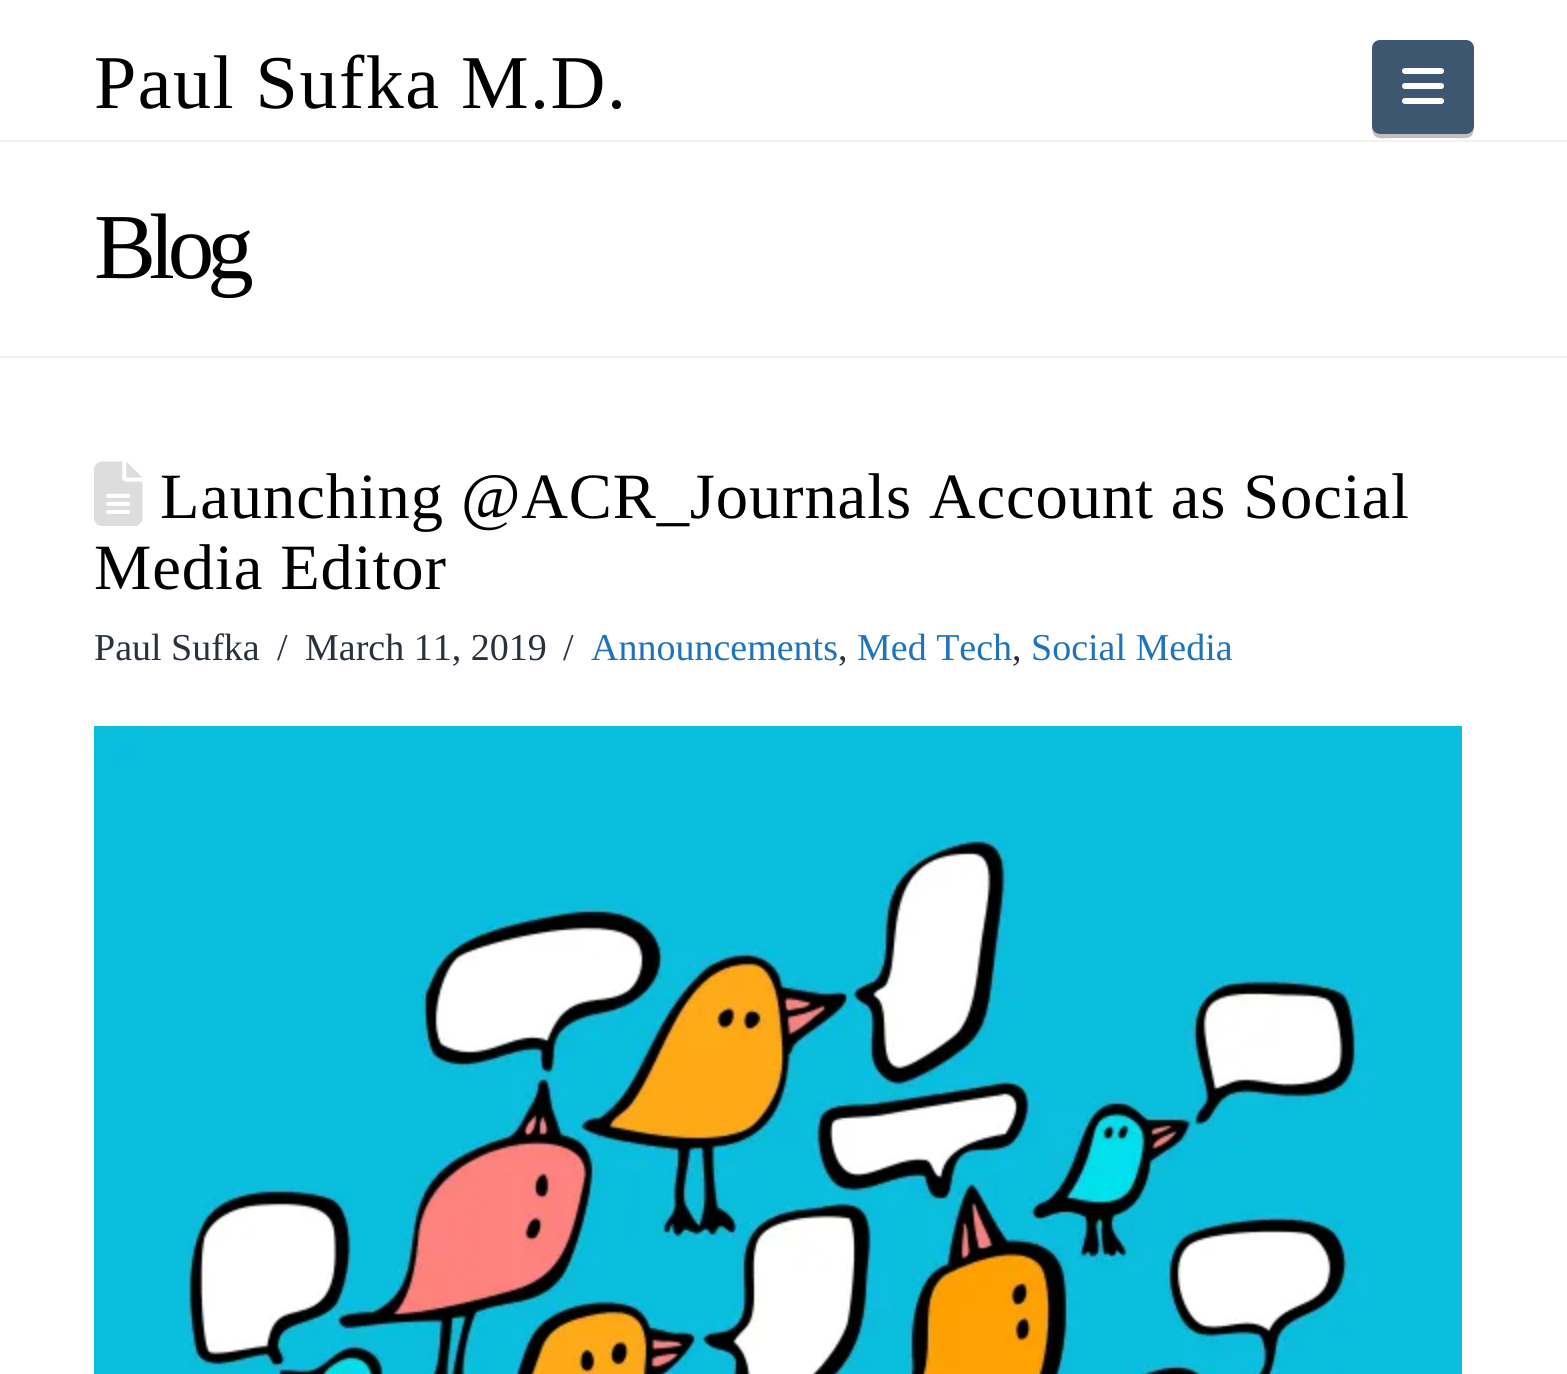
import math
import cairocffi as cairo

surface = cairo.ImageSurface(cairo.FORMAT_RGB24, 1567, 1374)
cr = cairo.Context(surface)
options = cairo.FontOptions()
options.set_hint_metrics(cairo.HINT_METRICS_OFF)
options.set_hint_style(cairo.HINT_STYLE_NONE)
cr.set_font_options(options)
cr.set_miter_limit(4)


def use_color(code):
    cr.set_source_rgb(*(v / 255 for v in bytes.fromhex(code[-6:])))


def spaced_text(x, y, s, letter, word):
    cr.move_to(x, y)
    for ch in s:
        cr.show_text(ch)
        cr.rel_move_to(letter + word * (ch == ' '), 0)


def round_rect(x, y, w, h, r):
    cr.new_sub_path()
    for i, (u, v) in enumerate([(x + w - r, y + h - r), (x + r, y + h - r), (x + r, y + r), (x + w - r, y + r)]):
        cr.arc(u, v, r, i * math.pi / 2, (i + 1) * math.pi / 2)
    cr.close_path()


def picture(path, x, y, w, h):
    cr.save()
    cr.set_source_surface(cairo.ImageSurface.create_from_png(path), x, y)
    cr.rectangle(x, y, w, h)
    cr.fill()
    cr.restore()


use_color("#ffffff")
cr.paint()
cr.select_font_face("Liberation Serif")
cr.set_font_size(76)
use_color("#000000")
spaced_text(94, 108, "Paul Sufka M.D.", 1.5, 0)
use_color("#bfbfbf")
cr.new_path()
cr.move_to(1372, 126)
cr.curve_to(1372, 141, 1380, 138, 1394, 138)
cr.line_to(1452, 138)
cr.curve_to(1466, 138, 1474, 141, 1474, 126)
cr.curve_to(1474, 130, 1470, 134, 1466, 134)
cr.line_to(1380, 134)
cr.curve_to(1376, 134, 1372, 130, 1372, 126)
cr.close_path()
cr.fill()
use_color("#3e5771")
round_rect(1372, 40, 102, 94, 8)
cr.fill()
picture("img1.png", 1402, 68, 42, 36)
use_color("#f2f2f2")
cr.rectangle(0, 140, 1567, 2)
cr.fill()
cr.rectangle(0, 356, 1567, 2)
cr.fill()
cr.set_font_size(93)
use_color("#000000")
spaced_text(94, 278, "Blog", -7, 0)
picture("img2.png", 94, 461, 49, 65)
cr.set_font_size(64.6)
spaced_text(160, 518, "Launching @ACR_Journals Account as Social", 0.85, 0)
spaced_text(94, 589, "Media Editor", 0.85, 0)
cr.set_font_size(38)
use_color("#28323f")
cr.move_to(94, 660)
cr.show_text("Paul Sufka")
cr.move_to(277, 660)
cr.show_text("/")
cr.move_to(305, 660)
cr.show_text("March 11, 2019")
cr.move_to(563, 660)
cr.show_text("/")
use_color("#1e73be")
cr.move_to(591, 660)
cr.show_text("Announcements")
use_color("#28323f")
cr.move_to(838, 660)
cr.show_text(",")
use_color("#1e73be")
cr.move_to(857, 660)
cr.show_text("Med Tech")
use_color("#28323f")
cr.move_to(1012, 660)
cr.show_text(",")
use_color("#1e73be")
cr.move_to(1031, 660)
cr.show_text("Social Media")
picture("img3.png", 94, 726, 1368, 648)
surface.write_to_png("result.png")
